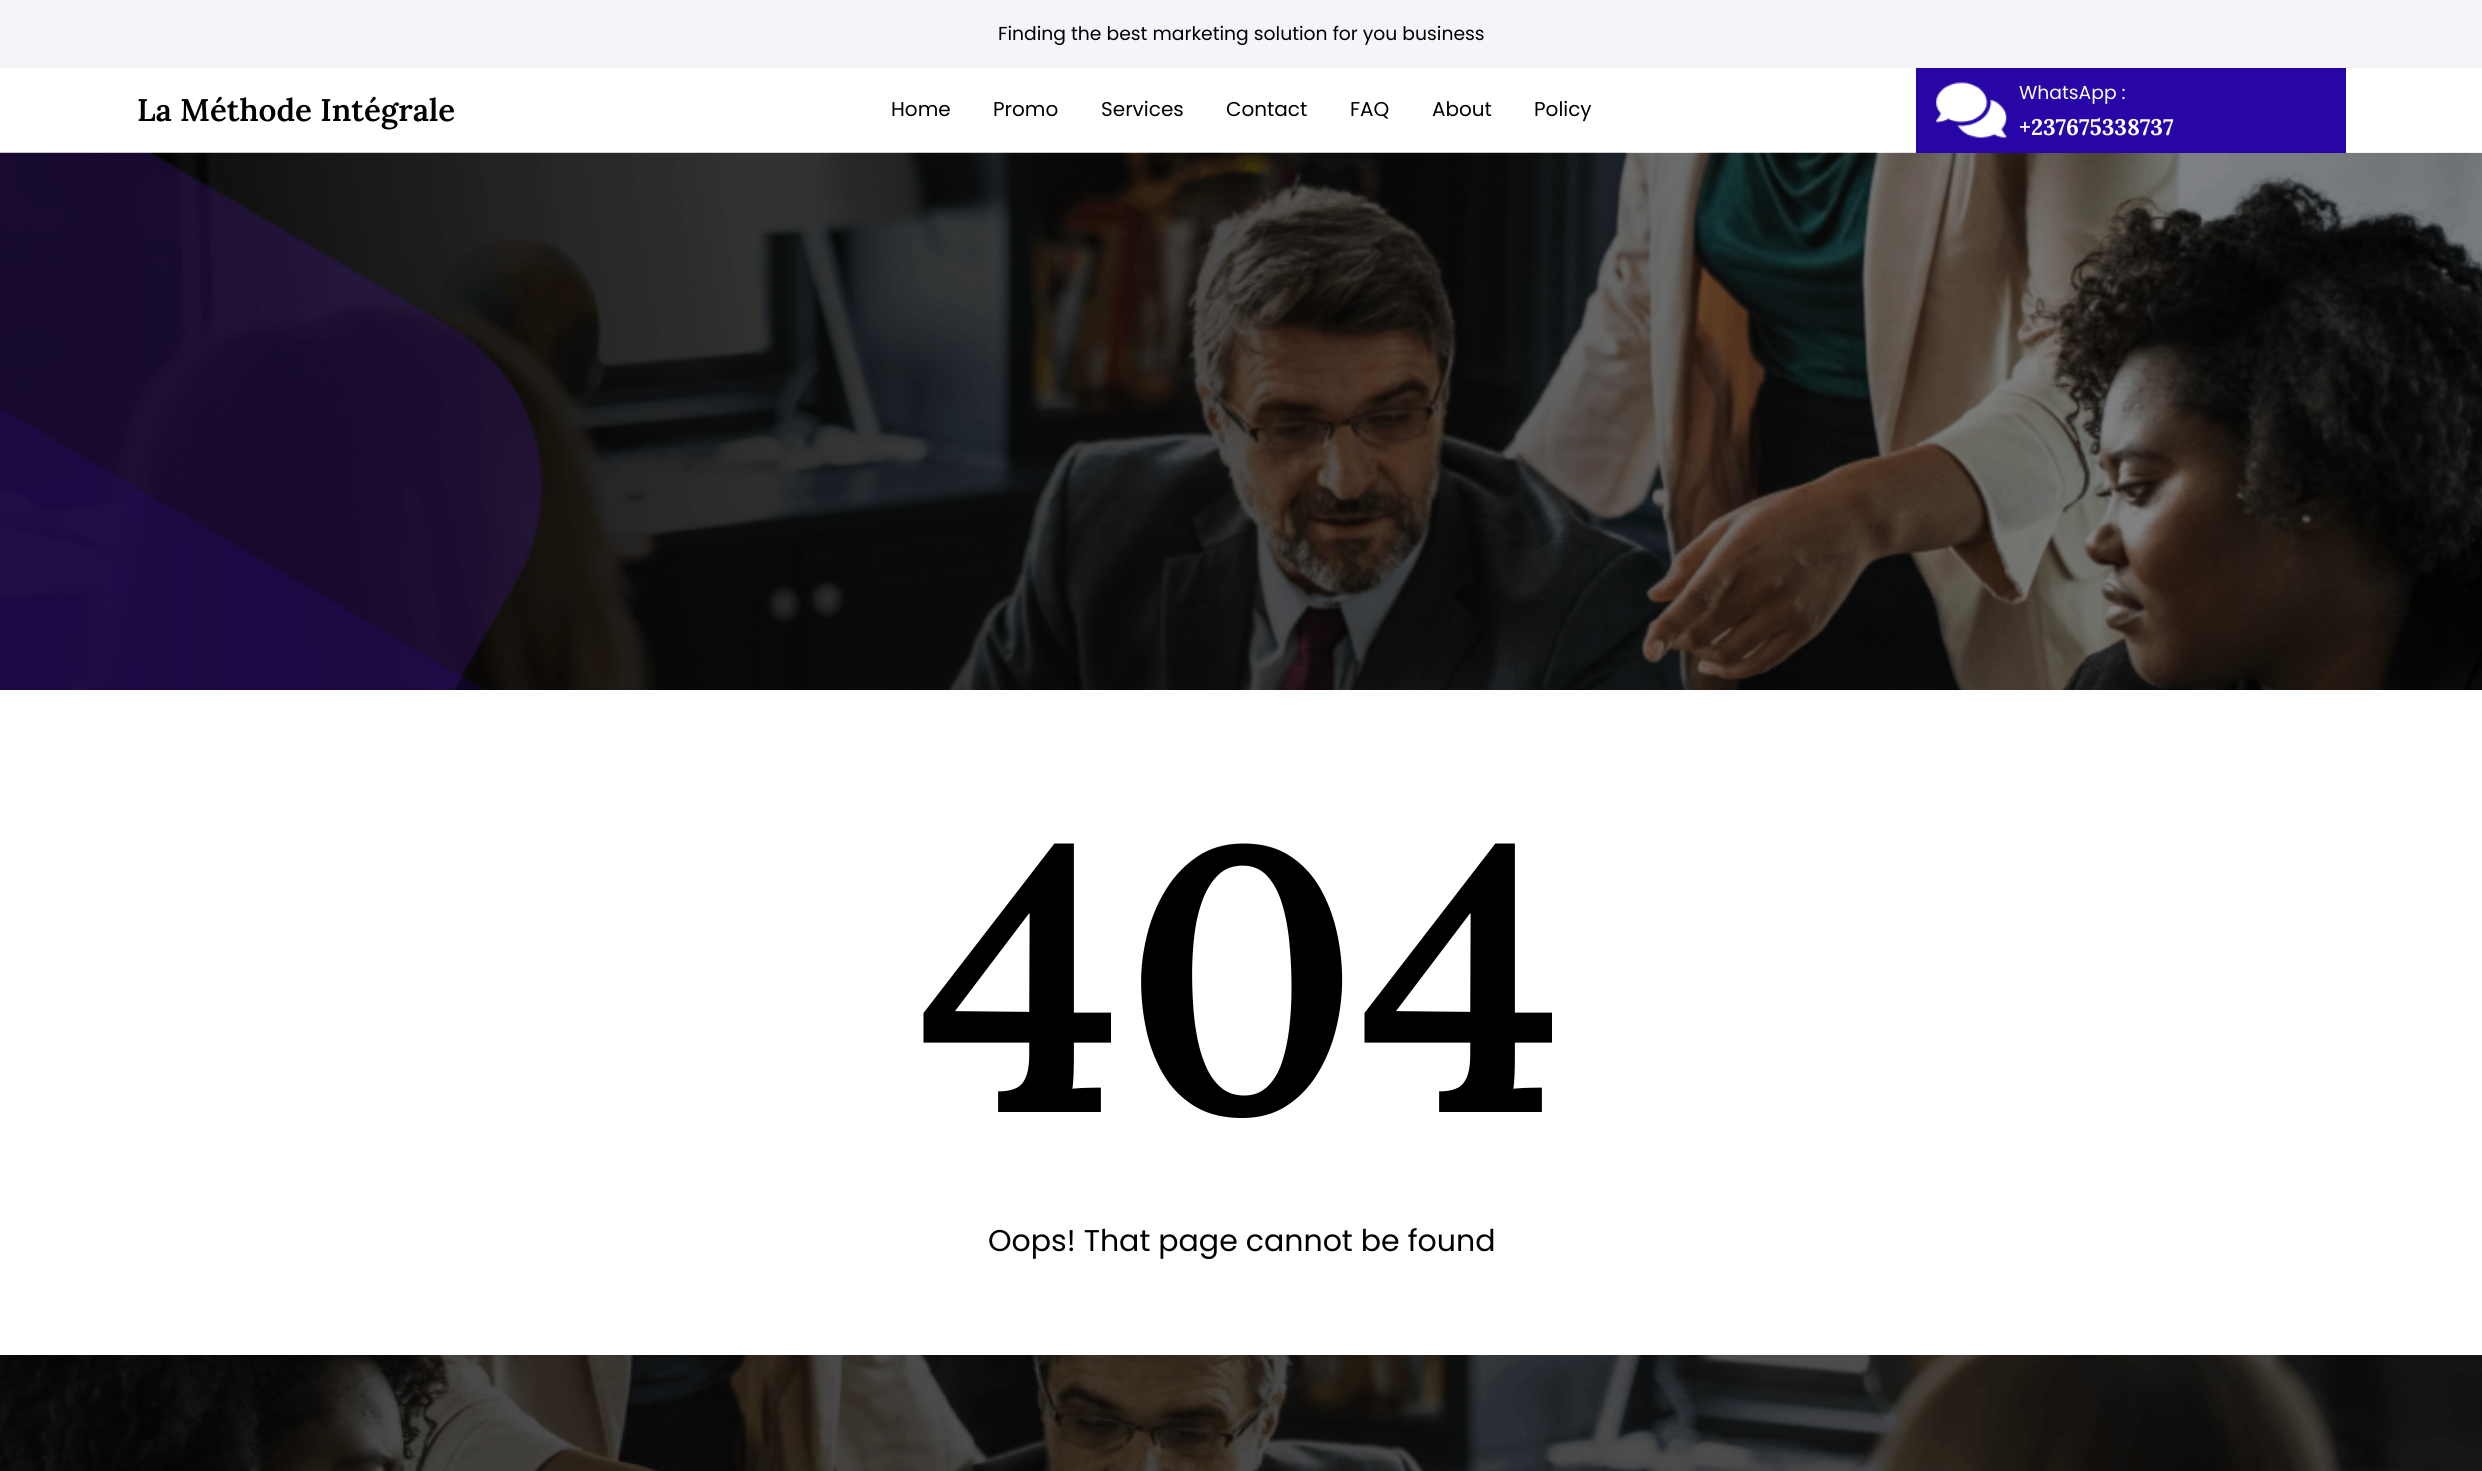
import math
import cairocffi as cairo

surface = cairo.ImageSurface(cairo.FORMAT_RGB24, 2482, 1471)
cr = cairo.Context(surface)
options = cairo.FontOptions()
options.set_hint_metrics(cairo.HINT_METRICS_OFF)
options.set_hint_style(cairo.HINT_STYLE_NONE)
cr.set_font_options(options)
cr.set_miter_limit(4)


def use_color(code):
    cr.set_source_rgb(*(v / 255 for v in bytes.fromhex(code[-6:])))


def picture(path, x, y, w, h):
    cr.save()
    cr.set_source_surface(cairo.ImageSurface.create_from_png(path), x, y)
    cr.rectangle(x, y, w, h)
    cr.fill()
    cr.restore()


use_color("#ffffff")
cr.paint()
use_color("#f6f4f9")
cr.rectangle(0, 0, 2482, 68)
cr.fill()
cr.select_font_face("Poppins")
cr.set_font_size(18.75)
use_color("#000000")
cr.move_to(998, 40)
cr.show_text("Finding the best marketing solution for you business")
cr.select_font_face("Lora SemiBold")
cr.set_font_size(31.25)
cr.move_to(137, 121)
cr.show_text("La Méthode Intégrale")
cr.select_font_face("Poppins")
cr.set_font_size(20)
cr.move_to(891, 116)
cr.show_text("Home")
cr.move_to(993, 116)
cr.show_text("Promo")
cr.move_to(1101, 116)
cr.show_text("Services")
cr.move_to(1226, 116)
cr.show_text("Contact")
cr.move_to(1350, 116)
cr.show_text("FAQ")
cr.move_to(1432, 116)
cr.show_text("About")
cr.move_to(1534, 116)
cr.show_text("Policy")
picture("img2.png", 0, 152, 2482, 538)
use_color("#2805a7")
cr.rectangle(1916, 68, 430, 85)
cr.fill()
picture("img1.png", 1936, 82, 71, 56)
cr.set_font_size(18.75)
use_color("#ffffff")
cr.move_to(2019, 99)
cr.show_text("WhatsApp :")
cr.select_font_face("Lora", cairo.FONT_SLANT_NORMAL, cairo.FONT_WEIGHT_BOLD)
cr.set_font_size(22.5)
cr.move_to(2019, 135)
cr.show_text("+237675338737")
cr.select_font_face("Lora SemiBold")
cr.set_font_size(375)
use_color("#000000")
cr.move_to(919, 1112)
cr.show_text("404")
cr.select_font_face("Poppins")
cr.set_font_size(30)
cr.move_to(988, 1251)
cr.show_text("Oops! That page cannot be found")
picture("img3.png", 0, 1355, 2482, 116)
surface.write_to_png("result.png")
